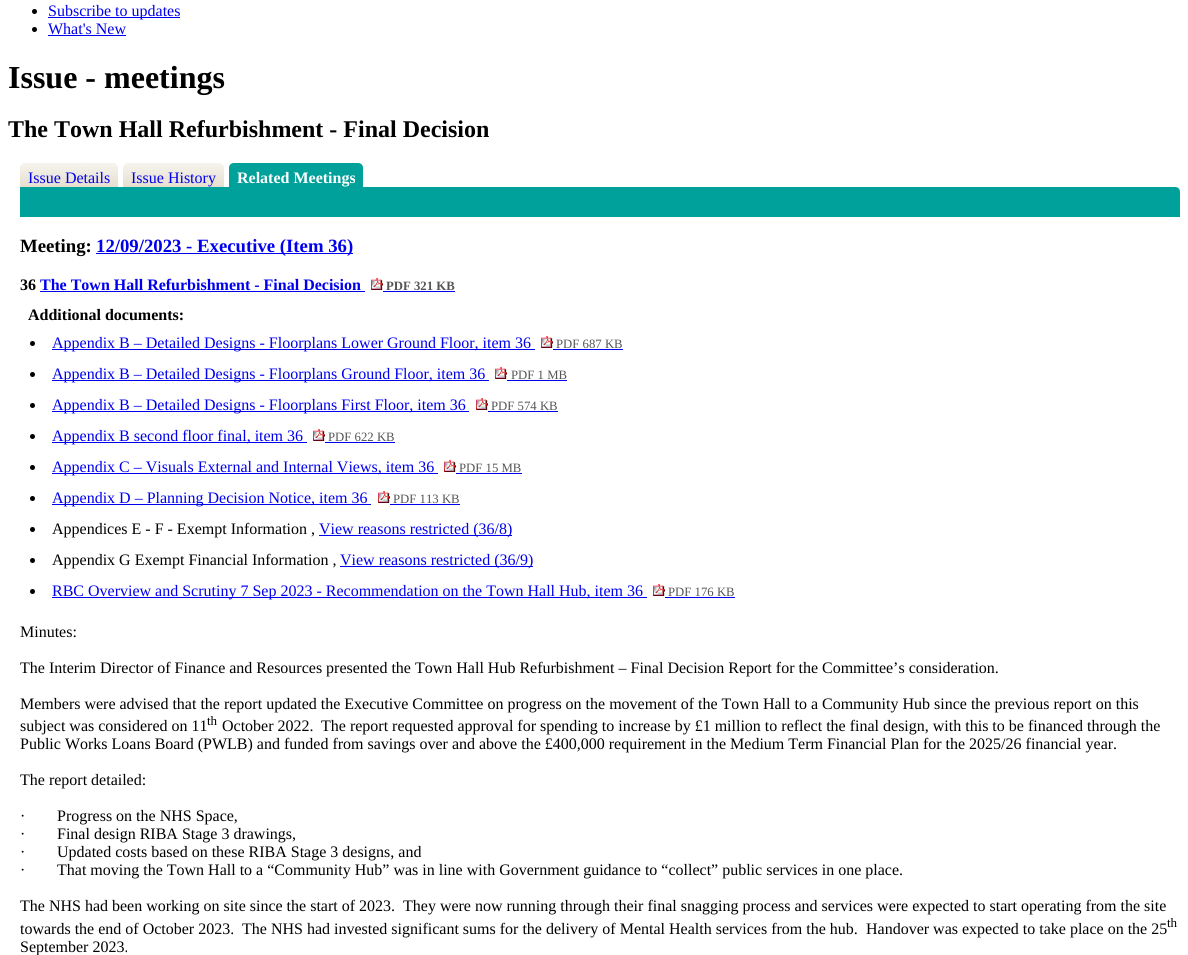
import math
import cairocffi as cairo

surface = cairo.ImageSurface(cairo.FORMAT_RGB24, 1188, 955)
cr = cairo.Context(surface)
options = cairo.FontOptions()
options.set_hint_metrics(cairo.HINT_METRICS_OFF)
options.set_hint_style(cairo.HINT_STYLE_NONE)
cr.set_font_options(options)
cr.set_miter_limit(4)


def use_color(code):
    cr.set_source_rgb(*(v / 255 for v in bytes.fromhex(code[-6:])))


def picture(path, x, y, w, h):
    cr.save()
    cr.set_source_surface(cairo.ImageSurface.create_from_png(path), x, y)
    cr.rectangle(x, y, w, h)
    cr.fill()
    cr.restore()


use_color("#ffffff")
cr.paint()
use_color("#000000")
cr.arc(34.5, 11.5, 2.5, 0, 2 * math.pi)
cr.fill()
use_color("#0000ee")
cr.rectangle(48, 17, 132, 1)
cr.fill()
cr.select_font_face("Liberation Serif")
cr.set_font_size(16)
cr.move_to(48, 16)
cr.show_text("Subscribe to updates")
use_color("#000000")
cr.new_path()
cr.arc(34.5, 29.5, 2.5, 0, 2 * math.pi)
cr.fill()
use_color("#0000ee")
cr.move_to(48, 34)
cr.show_text("What's New")
cr.rectangle(48, 35, 78, 1)
cr.fill()
cr.select_font_face("Liberation Serif", cairo.FONT_SLANT_NORMAL, cairo.FONT_WEIGHT_BOLD)
cr.set_font_size(32)
use_color("#000000")
cr.move_to(8, 88)
cr.show_text("Issue - meetings")
cr.set_font_size(24)
cr.move_to(8, 137)
cr.show_text("The Town Hall Refurbishment - Final Decision")
picture("img1.png", 20, 163, 98, 24)
cr.select_font_face("Liberation Serif")
cr.set_font_size(16)
use_color("#0000ee")
cr.move_to(28, 183)
cr.show_text("Issue Details")
picture("img2.png", 123, 163, 101, 24)
cr.move_to(131, 183)
cr.show_text("Issue History")
use_color("#00a19a")
cr.new_path()
cr.move_to(234, 163)
cr.line_to(358, 163)
cr.curve_to(361, 163, 363, 165, 363, 168)
cr.line_to(363, 187)
cr.line_to(229, 187)
cr.line_to(229, 168)
cr.curve_to(229, 165, 231, 163, 234, 163)
cr.close_path()
cr.fill()
cr.select_font_face("Liberation Serif", cairo.FONT_SLANT_NORMAL, cairo.FONT_WEIGHT_BOLD)
use_color("#ffffff")
cr.move_to(237, 183)
cr.show_text("Related Meetings")
use_color("#00a19a")
cr.new_path()
cr.move_to(20, 187)
cr.line_to(1175, 187)
cr.curve_to(1178, 187, 1180, 189, 1180, 192)
cr.line_to(1180, 217)
cr.line_to(20, 217)
cr.close_path()
cr.fill()
cr.set_font_size(18.75)
use_color("#000000")
cr.move_to(20, 252)
cr.show_text("Meeting:")
use_color("#0000ee")
cr.rectangle(96, 253, 257, 1)
cr.fill()
cr.move_to(96, 252)
cr.show_text("12/09/2023 - Executive (Item 36)")
cr.set_font_size(16)
use_color("#000000")
cr.move_to(20, 290)
cr.show_text("36")
use_color("#0000ee")
cr.move_to(40, 290)
cr.show_text("The Town Hall Refurbishment - Final Decision")
cr.rectangle(40, 291, 325, 1)
cr.fill()
picture("img3.png", 371, 278, 12, 12)
cr.set_font_size(12.75)
use_color("#555555")
cr.move_to(386, 290)
cr.show_text("PDF 321 KB")
use_color("#0000ee")
cr.rectangle(383, 291, 72, 1)
cr.fill()
cr.set_font_size(16)
use_color("#000000")
cr.move_to(28, 320)
cr.show_text("Additional documents:")
cr.new_path()
cr.arc(32.5, 343.5, 2.5, 0, 2 * math.pi)
cr.fill()
use_color("#0000ee")
cr.rectangle(52, 349, 483, 1)
cr.fill()
cr.select_font_face("Liberation Serif")
cr.move_to(52, 348)
cr.show_text("Appendix B – Detailed Designs - Floorplans Lower Ground Floor, item 36")
picture("img3.png", 541, 336, 12, 12)
cr.set_font_size(12.75)
use_color("#555555")
cr.move_to(556, 348)
cr.show_text("PDF 687 KB")
use_color("#0000ee")
cr.rectangle(553, 349, 70, 1)
cr.fill()
use_color("#000000")
cr.arc(32.5, 374.5, 2.5, 0, 2 * math.pi)
cr.fill()
use_color("#0000ee")
cr.rectangle(52, 380, 437, 1)
cr.fill()
cr.set_font_size(16)
cr.move_to(52, 379)
cr.show_text("Appendix B – Detailed Designs - Floorplans Ground Floor, item 36")
picture("img3.png", 495, 367, 12, 12)
cr.set_font_size(12.75)
use_color("#555555")
cr.move_to(511, 379)
cr.show_text("PDF 1 MB")
use_color("#0000ee")
cr.rectangle(507, 380, 60, 1)
cr.fill()
use_color("#000000")
cr.arc(32.5, 405.5, 2.5, 0, 2 * math.pi)
cr.fill()
use_color("#0000ee")
cr.rectangle(52, 411, 417, 1)
cr.fill()
cr.set_font_size(16)
cr.move_to(52, 410)
cr.show_text("Appendix B – Detailed Designs - Floorplans First Floor, item 36")
picture("img3.png", 476, 398, 12, 12)
cr.set_font_size(12.75)
use_color("#555555")
cr.move_to(491, 410)
cr.show_text("PDF 574 KB")
use_color("#0000ee")
cr.rectangle(488, 411, 70, 1)
cr.fill()
use_color("#000000")
cr.arc(32.5, 436.5, 2.5, 0, 2 * math.pi)
cr.fill()
use_color("#0000ee")
cr.rectangle(52, 442, 255, 1)
cr.fill()
cr.set_font_size(16)
cr.move_to(52, 441)
cr.show_text("Appendix B second floor final, item 36")
picture("img3.png", 313, 429, 12, 12)
cr.set_font_size(12.75)
use_color("#555555")
cr.move_to(328, 441)
cr.show_text("PDF 622 KB")
use_color("#0000ee")
cr.rectangle(325, 442, 70, 1)
cr.fill()
use_color("#000000")
cr.arc(32.5, 467.5, 2.5, 0, 2 * math.pi)
cr.fill()
use_color("#0000ee")
cr.rectangle(52, 473, 386, 1)
cr.fill()
cr.set_font_size(16)
cr.move_to(52, 472)
cr.show_text("Appendix C – Visuals External and Internal Views, item 36")
picture("img3.png", 444, 460, 12, 12)
cr.set_font_size(12.75)
use_color("#555555")
cr.move_to(459, 472)
cr.show_text("PDF 15 MB")
use_color("#0000ee")
cr.rectangle(456, 473, 66, 1)
cr.fill()
use_color("#000000")
cr.arc(32.5, 498.5, 2.5, 0, 2 * math.pi)
cr.fill()
use_color("#0000ee")
cr.rectangle(52, 504, 319, 1)
cr.fill()
cr.set_font_size(16)
cr.move_to(52, 503)
cr.show_text("Appendix D – Planning Decision Notice, item 36")
picture("img3.png", 378, 491, 12, 12)
cr.set_font_size(12.75)
use_color("#555555")
cr.move_to(393, 503)
cr.show_text("PDF 113 KB")
use_color("#0000ee")
cr.rectangle(390, 504, 70, 1)
cr.fill()
use_color("#000000")
cr.arc(32.5, 529.5, 2.5, 0, 2 * math.pi)
cr.fill()
cr.set_font_size(16)
cr.move_to(52, 534)
cr.show_text("Appendices E - F - Exempt Information ,")
use_color("#0000ee")
cr.rectangle(319, 535, 193, 1)
cr.fill()
cr.move_to(319, 534)
cr.show_text("View reasons restricted (36/8)")
use_color("#000000")
cr.new_path()
cr.arc(32.5, 560.5, 2.5, 0, 2 * math.pi)
cr.fill()
cr.move_to(52, 565)
cr.show_text("Appendix G Exempt Financial Information ,")
use_color("#0000ee")
cr.rectangle(340, 566, 193, 1)
cr.fill()
cr.move_to(340, 565)
cr.show_text("View reasons restricted (36/9)")
use_color("#000000")
cr.new_path()
cr.arc(32.5, 591.5, 2.5, 0, 2 * math.pi)
cr.fill()
use_color("#0000ee")
cr.rectangle(52, 597, 595, 1)
cr.fill()
cr.move_to(52, 596)
cr.show_text("RBC Overview and Scrutiny 7 Sep 2023 - Recommendation on the Town Hall Hub, item 36")
picture("img3.png", 653, 584, 12, 12)
cr.set_font_size(12.75)
use_color("#555555")
cr.move_to(668, 596)
cr.show_text("PDF 176 KB")
use_color("#0000ee")
cr.rectangle(665, 597, 70, 1)
cr.fill()
cr.set_font_size(16)
use_color("#000000")
cr.move_to(20, 637)
cr.show_text("Minutes:")
cr.move_to(20, 673)
cr.show_text("The Interim Director of Finance and Resources presented the Town Hall Hub Refurbishment – Final Decision Report for the Committee’s consideration.")
cr.move_to(20, 709)
cr.show_text("Members were advised that the report updated the Executive Committee on progress on the movement of the Town Hall to a Community Hub since the previous report on this")
cr.move_to(20, 731)
cr.show_text("subject was considered on 11")
cr.set_font_size(13)
cr.move_to(207, 725)
cr.show_text("th")
cr.set_font_size(16)
cr.move_to(222, 731)
cr.show_text("October 2022.")
cr.move_to(321, 731)
cr.show_text("The report requested approval for spending to increase by £1 million to reflect the final design, with this to be financed through the")
cr.move_to(20, 749)
cr.show_text("Public Works Loans Board (PWLB) and funded from savings over and above the £400,000 requirement in the Medium Term Financial Plan for the 2025/26 financial year.")
cr.move_to(20, 785)
cr.show_text("The report detailed:")
cr.move_to(20, 821)
cr.show_text("·")
cr.move_to(57, 821)
cr.show_text("Progress on the NHS Space,")
cr.move_to(20, 839)
cr.show_text("·")
cr.move_to(57, 839)
cr.show_text("Final design RIBA Stage 3 drawings,")
cr.move_to(20, 857)
cr.show_text("·")
cr.move_to(57, 857)
cr.show_text("Updated costs based on these RIBA Stage 3 designs, and")
cr.move_to(20, 875)
cr.show_text("·")
cr.move_to(57, 875)
cr.show_text("That moving the Town Hall to a “Community Hub” was in line with Government guidance to “collect” public services in one place.")
cr.move_to(20, 911)
cr.show_text("The NHS had been working on site since the start of 2023.")
cr.move_to(403, 911)
cr.show_text("They were now running through their final snagging process and services were expected to start operating from the site")
cr.move_to(20, 934)
cr.show_text("towards the end of October 2023.")
cr.move_to(242, 934)
cr.show_text("The NHS had invested significant sums for the delivery of Mental Health services from the hub.")
cr.move_to(866, 934)
cr.show_text("Handover was expected to take place on the 25")
cr.set_font_size(13)
cr.move_to(1167, 927)
cr.show_text("th")
cr.set_font_size(16)
cr.move_to(20, 952)
cr.show_text("September 2023.")
surface.write_to_png("result.png")
